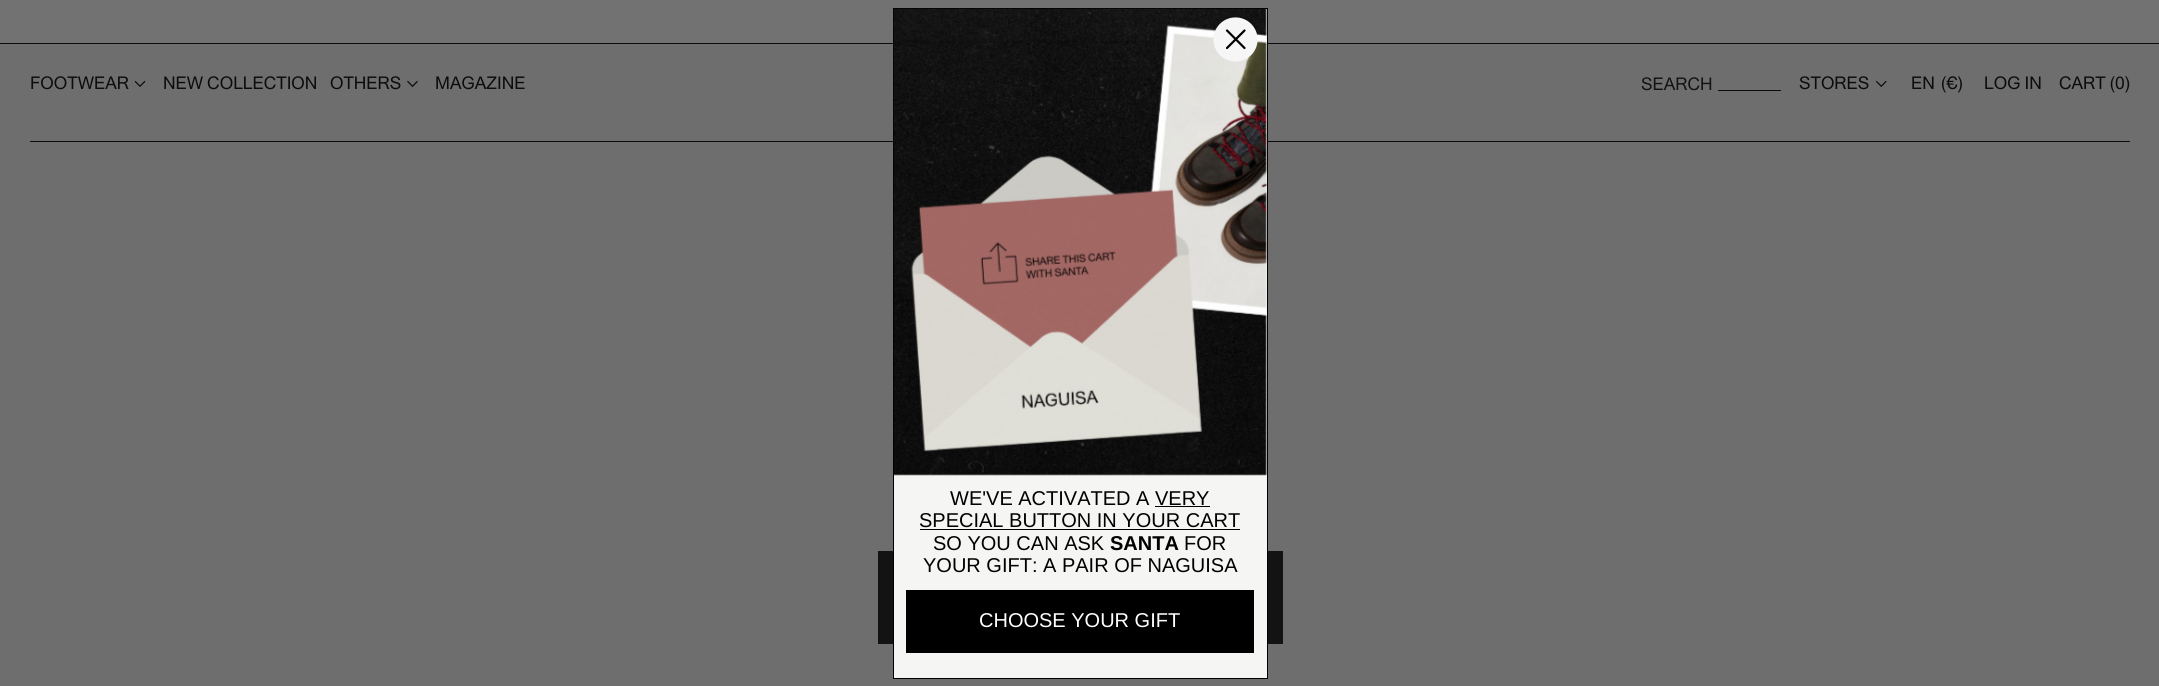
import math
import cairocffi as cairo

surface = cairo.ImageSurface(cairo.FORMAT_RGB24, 2159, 686)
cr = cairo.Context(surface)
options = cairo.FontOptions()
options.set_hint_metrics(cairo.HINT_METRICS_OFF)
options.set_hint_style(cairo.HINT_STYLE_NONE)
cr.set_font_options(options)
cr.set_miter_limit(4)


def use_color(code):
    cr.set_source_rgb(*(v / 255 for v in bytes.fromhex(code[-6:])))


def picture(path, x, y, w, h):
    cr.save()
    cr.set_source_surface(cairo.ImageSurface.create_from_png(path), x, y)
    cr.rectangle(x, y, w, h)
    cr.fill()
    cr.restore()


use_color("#6e6e6e")
cr.paint()
use_color("#727272")
cr.rectangle(0, 0, 2159, 43)
cr.fill()
use_color("#0c0c0c")
cr.rectangle(0, 43, 2159, 1)
cr.fill()
cr.rectangle(30, 141, 2100, 1)
cr.fill()
cr.select_font_face("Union")
cr.set_font_size(17.5)
cr.move_to(30, 89)
cr.show_text("FOOTWEAR")
picture("img1.png", 134, 80, 12, 7)
cr.move_to(163, 89)
cr.show_text("NEW COLLECTION")
cr.move_to(330, 89)
cr.show_text("OTHERS")
picture("img2.png", 407, 80, 11, 7)
cr.move_to(435, 89)
cr.show_text("MAGAZINE")
use_color("#131313")
cr.move_to(1641, 90)
cr.show_text("SEARCH")
use_color("#0c0c0c")
cr.rectangle(1718, 90, 63, 1)
cr.fill()
cr.move_to(1799, 89)
cr.show_text("STORES")
picture("img3.png", 1875, 80, 12, 7)
cr.move_to(1911, 89)
cr.show_text("EN")
cr.move_to(1941, 89)
cr.show_text("(€)")
cr.move_to(1984, 89)
cr.show_text("LOG IN")
cr.move_to(2059, 89)
cr.show_text("CART (0)")
use_color("#131313")
cr.rectangle(878, 551, 405, 93)
cr.fill()
use_color("#f5f5f3")
cr.rectangle(893.5, 8.5, 374, 670)
cr.fill_preserve()
use_color("#000000")
cr.set_line_width(1)
cr.stroke()
picture("img4.png", 893, 8, 374, 468)
use_color("#f6f6f6")
cr.arc(1235.5, 39.5, 21, 0, 2 * math.pi)
cr.fill_preserve()
cr.set_line_width(2.2)
cr.stroke()
cr.new_path()
cr.move_to(1227, 30.5)
cr.line_to(1244.5, 48)
cr.move_to(1227, 48)
cr.line_to(1244.5, 30.5)
cr.close_path()
use_color("#000000")
cr.set_line_cap(cairo.LINE_CAP_ROUND)
cr.set_line_join(cairo.LINE_JOIN_ROUND)
cr.stroke()
cr.select_font_face("Liberation Sans")
cr.set_font_size(20)
cr.move_to(950, 505)
cr.show_text("WE'VE ACTIVATED A VERY")
cr.rectangle(1155, 506, 55, 1)
cr.fill()
cr.move_to(919, 527)
cr.show_text("SPECIAL BUTTON IN YOUR CART")
cr.rectangle(920, 529, 320, 1)
cr.fill()
cr.move_to(933, 550)
cr.show_text("SO YOU CAN ASK")
cr.select_font_face("Liberation Sans", cairo.FONT_SLANT_NORMAL, cairo.FONT_WEIGHT_BOLD)
cr.move_to(1110, 550)
cr.show_text("SANTA")
cr.select_font_face("Liberation Sans")
cr.move_to(1184, 550)
cr.show_text("FOR")
cr.move_to(923, 572)
cr.show_text("YOUR GIFT: A PAIR OF NAGUISA")
cr.rectangle(906, 590, 348, 63)
cr.fill()
use_color("#ffffff")
cr.move_to(979, 627)
cr.show_text("CHOOSE YOUR GIFT")
surface.write_to_png("result.png")
